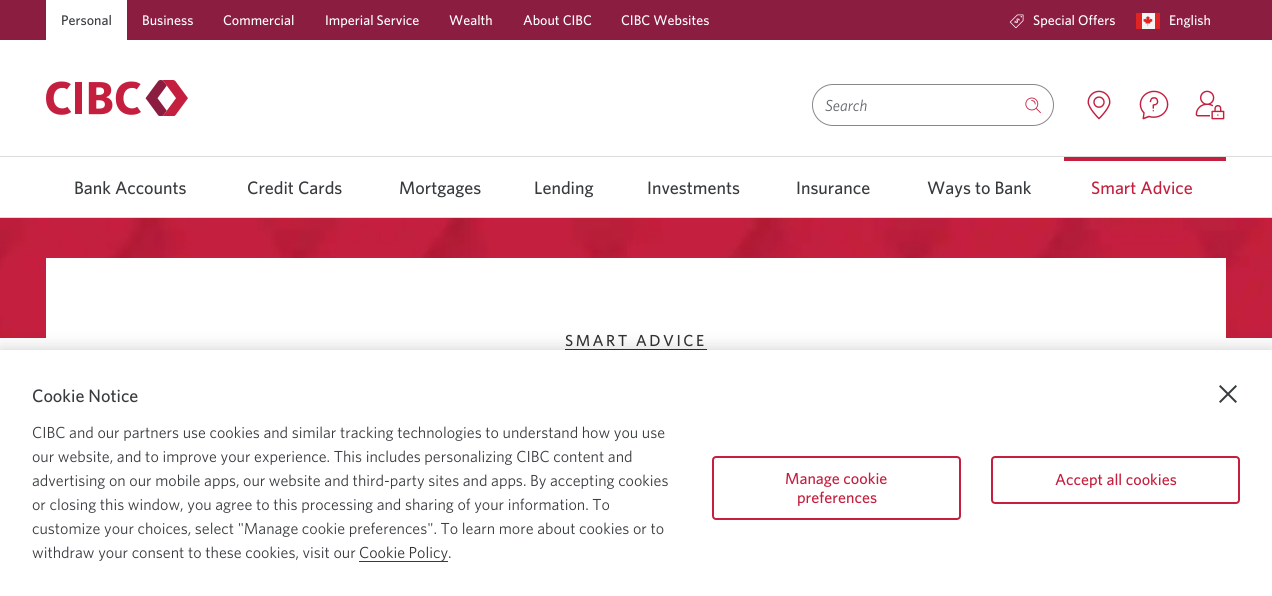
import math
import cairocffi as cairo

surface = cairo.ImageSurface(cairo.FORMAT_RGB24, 1272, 596)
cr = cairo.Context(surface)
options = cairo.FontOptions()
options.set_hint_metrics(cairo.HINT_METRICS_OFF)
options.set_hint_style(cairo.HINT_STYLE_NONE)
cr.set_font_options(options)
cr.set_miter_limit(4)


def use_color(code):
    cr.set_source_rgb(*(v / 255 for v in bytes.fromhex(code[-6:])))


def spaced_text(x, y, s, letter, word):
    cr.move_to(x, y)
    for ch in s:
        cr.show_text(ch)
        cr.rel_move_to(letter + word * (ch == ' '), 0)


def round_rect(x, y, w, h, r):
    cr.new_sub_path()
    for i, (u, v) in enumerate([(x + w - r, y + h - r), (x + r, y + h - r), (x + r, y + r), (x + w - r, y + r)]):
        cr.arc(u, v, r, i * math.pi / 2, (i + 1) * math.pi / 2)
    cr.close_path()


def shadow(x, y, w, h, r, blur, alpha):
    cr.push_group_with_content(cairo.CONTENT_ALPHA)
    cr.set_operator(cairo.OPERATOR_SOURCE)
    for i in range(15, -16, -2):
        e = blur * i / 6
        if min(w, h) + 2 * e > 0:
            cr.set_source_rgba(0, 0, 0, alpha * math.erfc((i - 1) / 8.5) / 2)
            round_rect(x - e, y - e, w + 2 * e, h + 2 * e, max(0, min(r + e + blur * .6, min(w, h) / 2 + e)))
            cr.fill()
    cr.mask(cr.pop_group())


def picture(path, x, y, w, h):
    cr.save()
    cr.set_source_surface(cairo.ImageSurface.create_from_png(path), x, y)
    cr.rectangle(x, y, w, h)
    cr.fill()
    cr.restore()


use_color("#ffffff")
cr.paint()
use_color("#8b1d41")
cr.rectangle(0, 0, 1272, 40)
cr.fill()
use_color("#ffffff")
cr.rectangle(46, 0, 81, 40)
cr.fill()
cr.select_font_face("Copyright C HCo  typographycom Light")
cr.set_font_size(14)
use_color("#383b3e")
cr.move_to(61, 25)
cr.show_text("Personal")
use_color("#ffffff")
cr.move_to(142, 25)
cr.show_text("Business")
cr.move_to(223, 25)
cr.show_text("Commercial")
cr.move_to(325, 25)
cr.show_text("Imperial Service")
cr.move_to(449, 25)
cr.show_text("Wealth")
cr.move_to(523, 25)
cr.show_text("About CIBC")
cr.move_to(621, 25)
cr.show_text("CIBC Websites")
picture("img1.png", 1009, 14, 15, 15)
cr.move_to(1033, 25)
cr.show_text("Special Offers")
use_color("#e02424")
cr.rectangle(1136, 13, 6, 16)
cr.fill()
use_color("#f5f5f5")
cr.rectangle(1142, 13, 13, 16)
cr.fill()
use_color("#e02424")
cr.rectangle(1155, 13, 5, 16)
cr.fill()
picture("img2.png", 1143, 15, 10, 11)
use_color("#ffffff")
cr.move_to(1169, 25)
cr.show_text("English")
picture("img3.png", 46, 80, 142, 36)
round_rect(812.5, 84.5, 241, 41, 20.5)
use_color("#86888a")
cr.set_line_width(1)
cr.stroke()
cr.select_font_face("Copyright C HCo  typographycom Light", cairo.FONT_SLANT_ITALIC)
cr.set_font_size(16)
use_color("#606366")
cr.move_to(825, 111)
cr.show_text("Search")
picture("img4.png", 1025, 97, 16, 17)
picture("img5.png", 1087, 90, 24, 30)
picture("img6.png", 1139, 90, 30, 30)
picture("img7.png", 1195, 90, 30, 30)
use_color("#dcdcdc")
cr.rectangle(0, 156, 1272, 1)
cr.fill()
cr.rectangle(0, 217, 1272, 1)
cr.fill()
cr.select_font_face("Copyright C HCo  typographycom Light")
cr.set_font_size(18)
use_color("#383b3e")
cr.move_to(74, 194)
cr.show_text("Bank Accounts")
cr.move_to(247, 194)
cr.show_text("Credit Cards")
cr.move_to(399, 194)
cr.show_text("Mortgages")
cr.move_to(534, 194)
cr.show_text("Lending")
cr.move_to(647, 194)
cr.show_text("Investments")
cr.move_to(796, 194)
cr.show_text("Insurance")
cr.move_to(927, 194)
cr.show_text("Ways to Bank")
use_color("#c41f3e")
cr.rectangle(1064, 157, 162, 4)
cr.fill()
cr.move_to(1091, 194)
cr.show_text("Smart Advice")
picture("img8.png", 0, 218, 1272, 120)
use_color("#ffffff")
cr.rectangle(46, 258, 1180, 80)
cr.fill()
use_color("#333333")
cr.rectangle(565, 349, 142, 1)
cr.fill()
cr.set_font_size(16)
spaced_text(565, 346, "SMART ADVICE", 2.5, 0)
use_color("#000000")
shadow(0, 350, 1272, 246, 0, 9, 0.2)
use_color("#ffffff")
cr.rectangle(0, 350, 1272, 246)
cr.fill()
cr.set_font_size(18)
use_color("#383b3e")
cr.move_to(32, 402)
cr.show_text("Cookie Notice")
cr.select_font_face("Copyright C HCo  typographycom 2 Light")
cr.set_font_size(16)
cr.move_to(32, 438)
cr.show_text("CIBC and our partners use cookies and similar tracking technologies to understand how you use")
cr.move_to(32, 462)
cr.show_text("our website, and to improve your experience. This includes personalizing CIBC content and")
cr.move_to(32, 486)
cr.show_text("advertising on our mobile apps, our website and third-party sites and apps. By accepting cookies")
cr.move_to(32, 510)
cr.show_text("or closing this window, you agree to this processing and sharing of your information. To")
cr.move_to(32, 534)
cr.show_text("customize your choices, select \"Manage cookie preferences\". To learn more about cookies or to")
cr.move_to(32, 558)
cr.show_text("withdraw your consent to these cookies, visit our")
use_color("#333333")
cr.move_to(359, 558)
cr.show_text("Cookie Policy")
use_color("#383b3e")
cr.rectangle(359, 561, 89, 1)
cr.fill()
cr.move_to(448, 558)
cr.show_text(".")
round_rect(713, 457, 247, 62, 3)
use_color("#c41f3e")
cr.set_line_width(2)
cr.stroke()
cr.select_font_face("Copyright C HCo  typographycom Light")
cr.move_to(785, 484)
cr.show_text("Manage cookie")
cr.move_to(797, 503)
cr.show_text("preferences")
round_rect(992, 457, 247, 46, 3)
cr.stroke()
cr.move_to(1055, 485)
cr.show_text("Accept all cookies")
picture("img9.png", 1219, 385, 18, 18)
surface.write_to_png("result.png")
